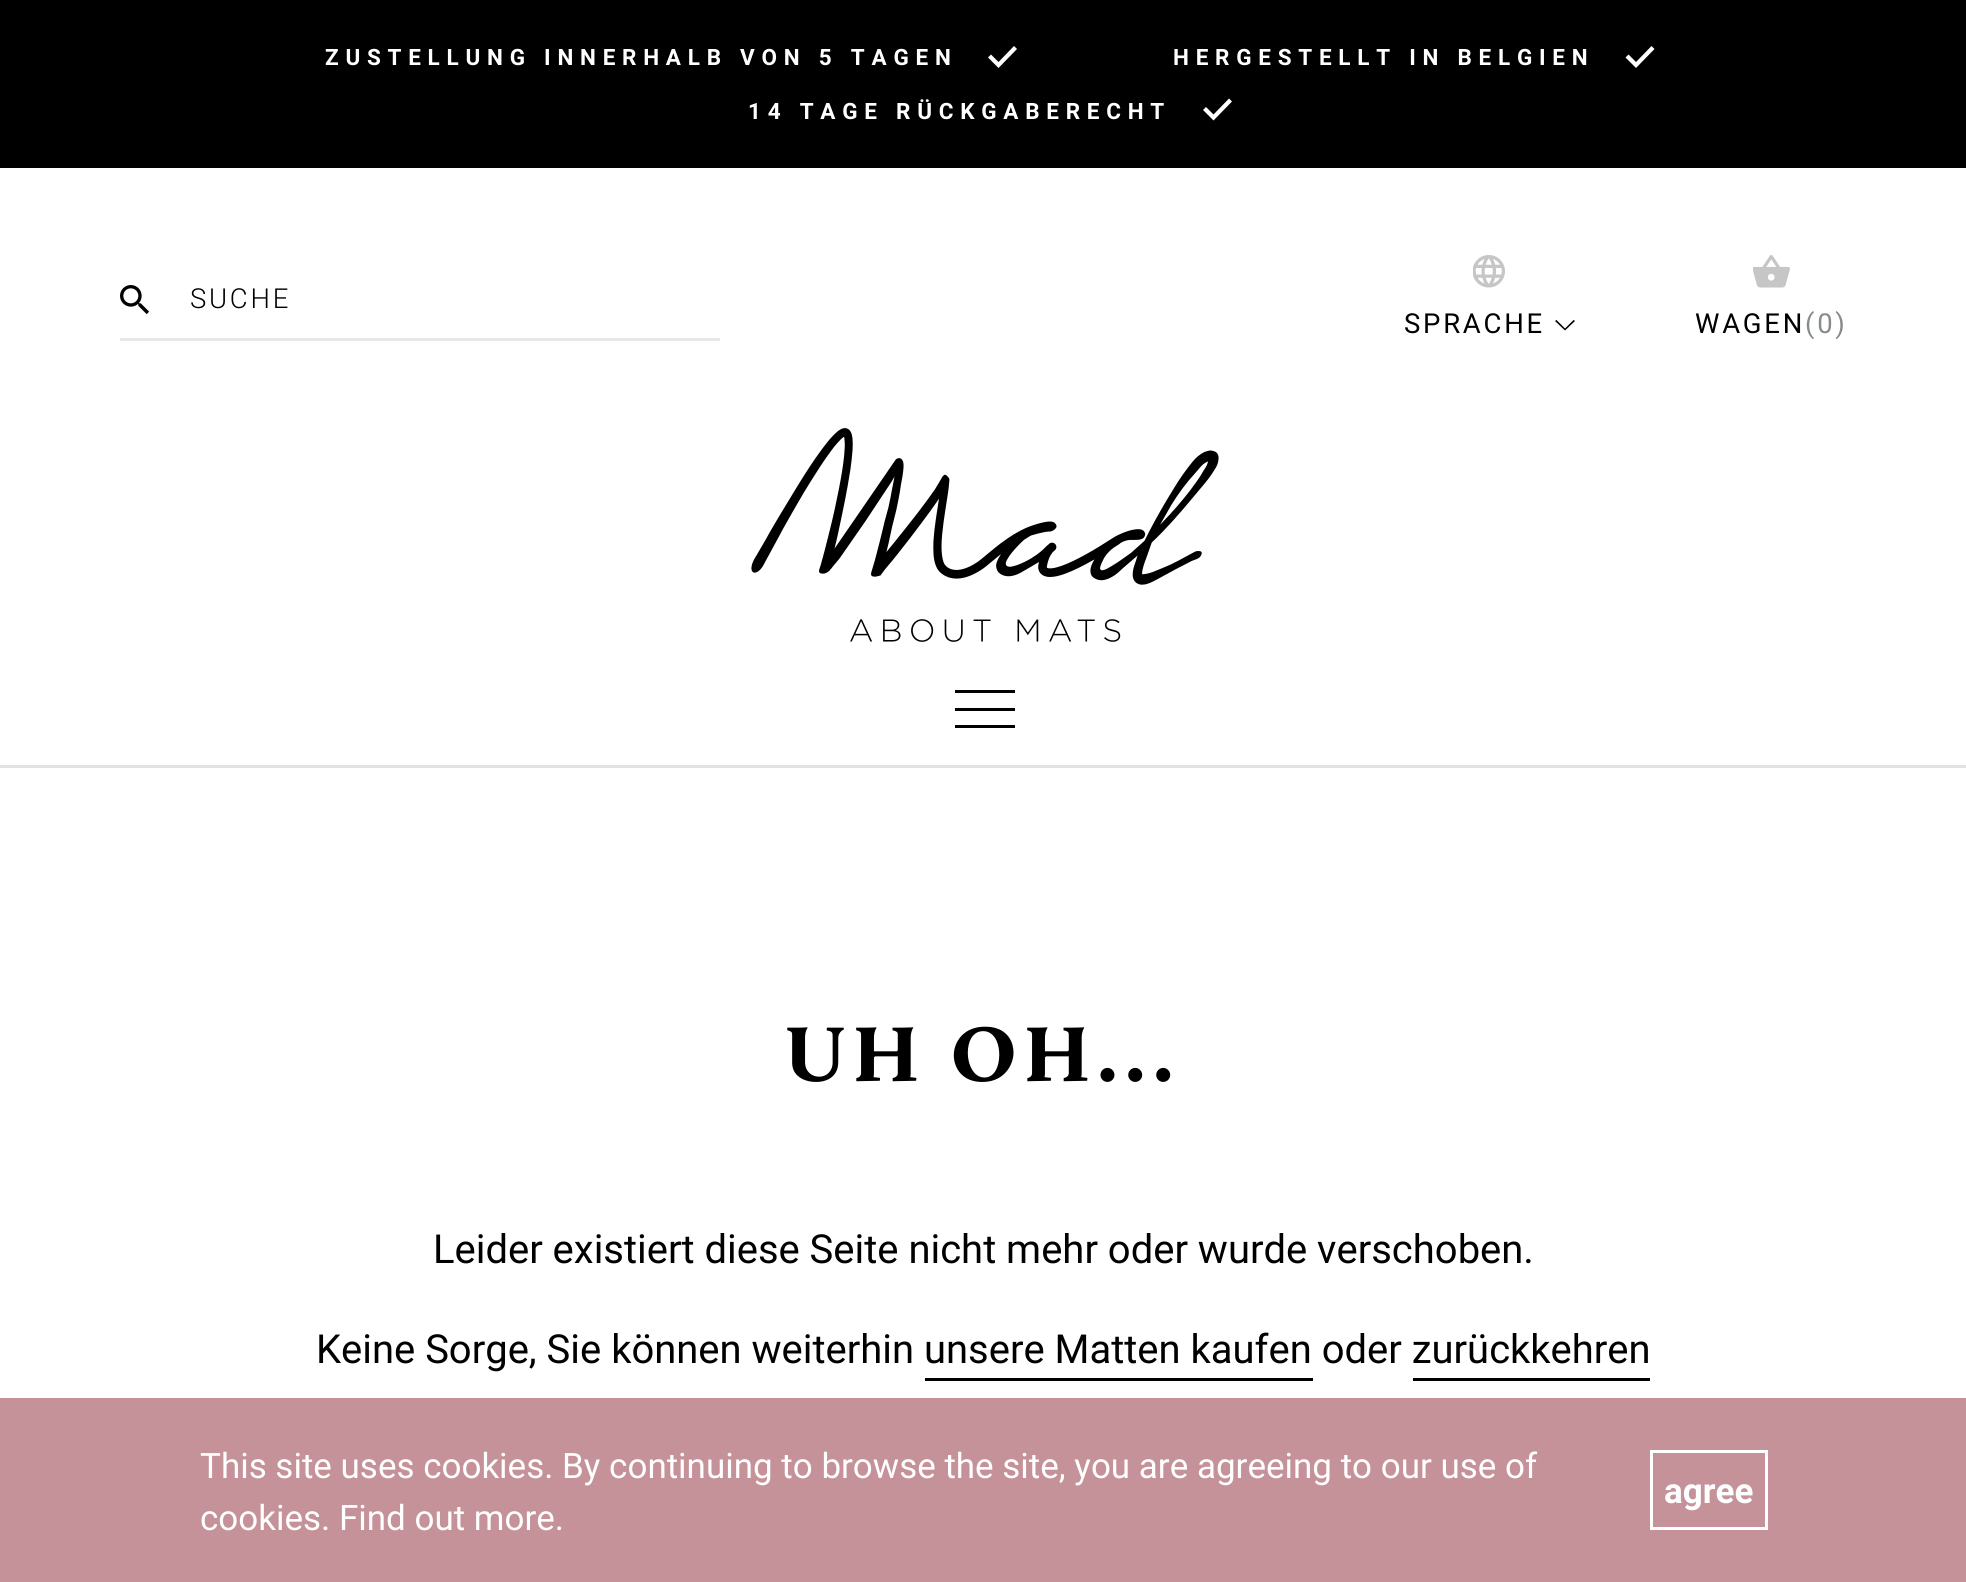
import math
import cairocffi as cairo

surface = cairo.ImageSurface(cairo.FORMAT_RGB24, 1966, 1582)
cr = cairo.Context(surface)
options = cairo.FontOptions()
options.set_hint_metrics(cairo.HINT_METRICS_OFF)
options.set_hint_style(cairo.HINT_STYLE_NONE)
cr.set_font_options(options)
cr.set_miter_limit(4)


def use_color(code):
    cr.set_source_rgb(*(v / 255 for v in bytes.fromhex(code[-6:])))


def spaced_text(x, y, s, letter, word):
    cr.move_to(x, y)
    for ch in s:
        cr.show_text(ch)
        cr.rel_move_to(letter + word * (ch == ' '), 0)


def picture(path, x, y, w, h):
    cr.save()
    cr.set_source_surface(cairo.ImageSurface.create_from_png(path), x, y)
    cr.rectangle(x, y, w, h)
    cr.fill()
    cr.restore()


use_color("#ffffff")
cr.paint()
use_color("#000000")
cr.rectangle(0, 0, 1966, 168)
cr.fill()
cr.select_font_face("Roboto", cairo.FONT_SLANT_NORMAL, cairo.FONT_WEIGHT_BOLD)
cr.set_font_size(22.5)
use_color("#ffffff")
spaced_text(325, 65, "ZUSTELLUNG INNERHALB VON 5 TAGEN", 6.75, 0)
cr.new_path()
cr.move_to(998.5, 68)
cr.line_to(988, 57.5)
cr.line_to(991, 54.5)
cr.line_to(998.5, 62)
cr.line_to(1014, 46)
cr.line_to(1017, 49)
cr.close_path()
cr.fill()
spaced_text(1173, 65, "HERGESTELLT IN BELGIEN", 6.75, 0)
cr.new_path()
cr.move_to(1636, 68)
cr.line_to(1625.5, 57.5)
cr.line_to(1628.5, 54.5)
cr.line_to(1636, 62)
cr.line_to(1651.5, 46)
cr.line_to(1654.5, 49)
cr.close_path()
cr.fill()
spaced_text(748, 119, "14 TAGE RÜCKGABERECHT", 6.75, 0)
cr.new_path()
cr.move_to(1213.5, 120.5)
cr.line_to(1203, 110)
cr.line_to(1206, 107)
cr.line_to(1213.5, 114.5)
cr.line_to(1229, 98.5)
cr.line_to(1232, 101.5)
cr.close_path()
cr.fill()
use_color("#e8e8e8")
cr.rectangle(120, 338, 600, 3)
cr.fill()
picture("img1.png", 120, 285, 30, 30)
cr.select_font_face("Roboto Light")
cr.set_font_size(27.5)
use_color("#000000")
spaced_text(190, 308, "SUCHE", 2.75, 0)
picture("img2.png", 1473, 255, 32, 33)
cr.select_font_face("Roboto")
spaced_text(1404, 333, "SPRACHE", 2.75, 0)
cr.new_path()
cr.move_to(1565, 330.5)
cr.line_to(1555, 321)
cr.line_to(1556.5, 320)
cr.line_to(1565, 328.5)
cr.line_to(1573.5, 320)
cr.line_to(1575, 321)
cr.close_path()
cr.fill()
picture("img3.png", 1753, 255, 37, 33)
spaced_text(1695, 333, "WAGEN", 2.75, 0)
use_color("#888b8c")
spaced_text(1805, 333, "(0)", 2.75, 0)
picture("img4.png", 751, 428, 468, 214)
use_color("#000000")
cr.rectangle(955, 708, 60, 3)
cr.fill()
cr.rectangle(955, 690, 60, 3)
cr.fill()
cr.rectangle(955, 725, 60, 3)
cr.fill()
use_color("#e2e2e2")
cr.rectangle(0, 765, 1966, 3)
cr.fill()
cr.select_font_face("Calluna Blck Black")
cr.set_font_size(80)
use_color("#000000")
spaced_text(786, 1081, "UH OH...", 8, 0)
cr.select_font_face("Roboto")
cr.set_font_size(40)
cr.move_to(433, 1263)
cr.show_text("Leider existiert diese Seite nicht mehr oder wurde verschoben.")
cr.move_to(316, 1363)
cr.show_text("Keine Sorge, Sie können weiterhin unsere Matten kaufen oder zurückkehren")
cr.rectangle(925, 1378, 388, 3)
cr.fill()
cr.rectangle(1413, 1378, 237, 3)
cr.fill()
use_color("#c59299")
cr.rectangle(0, 1398, 1966, 184)
cr.fill()
cr.set_font_size(35)
use_color("#ffffff")
cr.move_to(200, 1478)
cr.show_text("This site uses cookies. By continuing to browse the site, you are agreeing to our use of")
cr.move_to(200, 1530)
cr.show_text("cookies. Find out more.")
cr.rectangle(1651.5, 1451.5, 115, 77)
cr.set_line_width(3)
cr.stroke()
cr.select_font_face("Roboto", cairo.FONT_SLANT_NORMAL, cairo.FONT_WEIGHT_BOLD)
cr.move_to(1664, 1503)
cr.show_text("agree")
surface.write_to_png("result.png")
